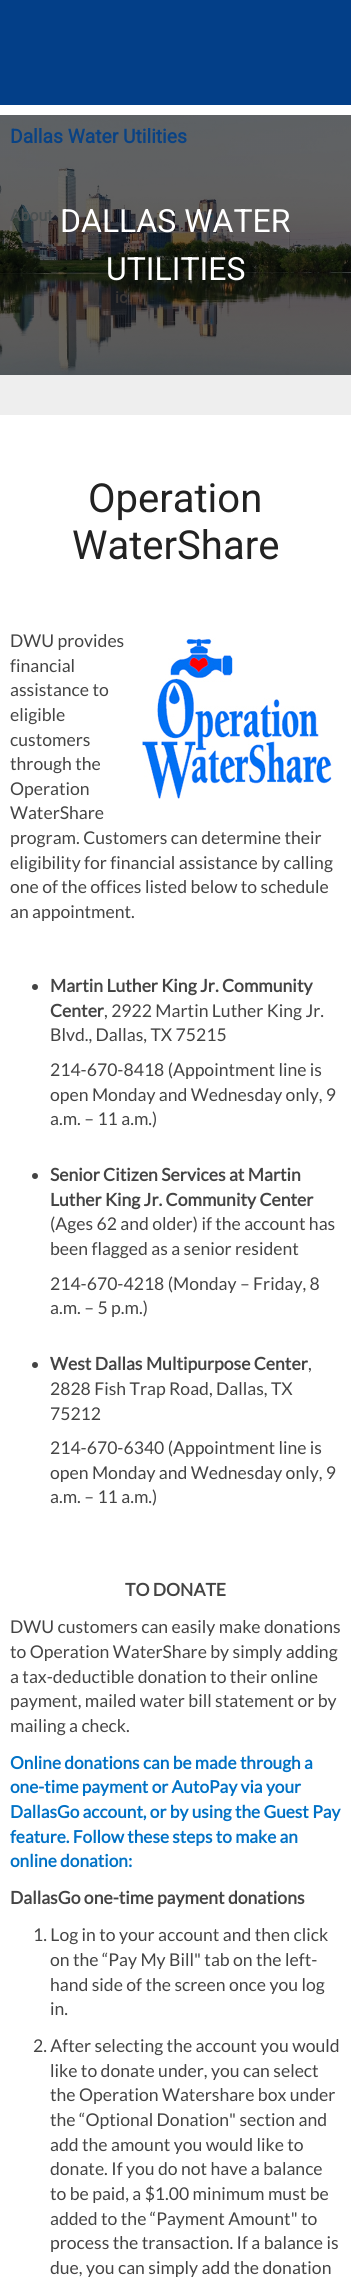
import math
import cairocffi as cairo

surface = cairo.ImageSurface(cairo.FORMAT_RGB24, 351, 2280)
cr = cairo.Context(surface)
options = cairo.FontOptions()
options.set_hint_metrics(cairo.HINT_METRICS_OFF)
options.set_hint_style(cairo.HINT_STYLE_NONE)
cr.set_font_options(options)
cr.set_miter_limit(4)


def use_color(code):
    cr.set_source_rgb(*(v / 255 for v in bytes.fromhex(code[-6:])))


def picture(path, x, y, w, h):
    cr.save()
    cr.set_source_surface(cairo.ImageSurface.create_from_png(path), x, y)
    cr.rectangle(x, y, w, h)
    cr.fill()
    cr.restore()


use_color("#ffffff")
cr.paint()
use_color("#033f88")
cr.rectangle(0, 0, 351, 105)
cr.fill()
use_color("#eeeeee")
cr.rectangle(0, 375, 351, 40)
cr.fill()
picture("img1.png", 0, 115, 351, 260)
cr.select_font_face("Roboto", cairo.FONT_SLANT_NORMAL, cairo.FONT_WEIGHT_BOLD)
cr.set_font_size(19.25)
use_color("#094284")
cr.move_to(10, 143)
cr.show_text("Dallas Water Utilities")
cr.set_font_size(16)
use_color("#4a4f50")
cr.move_to(10, 221)
cr.show_text("About")
use_color("#393533")
cr.move_to(115, 303)
cr.show_text("ic")
cr.select_font_face("Roboto")
cr.set_font_size(32)
use_color("#ffffff")
cr.move_to(60, 232)
cr.show_text("DALLAS WATER")
cr.move_to(106, 280)
cr.show_text("UTILITIES")
cr.set_font_size(40)
use_color("#222222")
cr.move_to(88, 512)
cr.show_text("Operation")
cr.move_to(72, 559)
cr.show_text("WaterShare")
cr.select_font_face("Lato")
cr.set_font_size(17.6)
use_color("#444444")
cr.move_to(10, 647)
cr.show_text("DWU provides")
picture("img2.png", 142, 637, 190, 162)
cr.move_to(10, 672)
cr.show_text("financial")
cr.move_to(10, 696)
cr.show_text("assistance to")
cr.move_to(10, 721)
cr.show_text("eligible")
cr.move_to(10, 746)
cr.show_text("customers")
cr.move_to(10, 770)
cr.show_text("through the")
cr.move_to(10, 795)
cr.show_text("Operation")
cr.move_to(10, 819)
cr.show_text("WaterShare")
cr.move_to(10, 844)
cr.show_text("program. Customers can determine their")
cr.move_to(10, 869)
cr.show_text("eligibility for financial assistance by calling")
cr.move_to(10, 893)
cr.show_text("one of the offices listed below to schedule")
cr.move_to(10, 918)
cr.show_text("an appointment.")
cr.new_path()
cr.arc(35, 987, 3, 0, 2 * math.pi)
cr.fill()
cr.select_font_face("Lato", cairo.FONT_SLANT_NORMAL, cairo.FONT_WEIGHT_BOLD)
cr.move_to(50, 992)
cr.show_text("Martin Luther King Jr. Community")
cr.move_to(50, 1017)
cr.show_text("Center")
cr.select_font_face("Lato")
cr.move_to(104, 1017)
cr.show_text(", 2922 Martin Luther King Jr.")
cr.move_to(50, 1041)
cr.show_text("Blvd., Dallas, TX 75215")
cr.move_to(50, 1076)
cr.show_text("214-670-8418 (Appointment line is")
cr.move_to(50, 1101)
cr.show_text("open Monday and Wednesday only, 9")
cr.move_to(50, 1125)
cr.show_text("a.m. – 11 a.m.)")
cr.new_path()
cr.arc(35, 1176, 3, 0, 2 * math.pi)
cr.fill()
cr.select_font_face("Lato", cairo.FONT_SLANT_NORMAL, cairo.FONT_WEIGHT_BOLD)
cr.move_to(50, 1181)
cr.show_text("Senior Citizen Services at Martin")
cr.move_to(50, 1206)
cr.show_text("Luther King Jr. Community Center")
cr.select_font_face("Lato")
cr.move_to(50, 1230)
cr.show_text("(Ages 62 and older) if the account has")
cr.move_to(50, 1255)
cr.show_text("been flagged as a senior resident")
cr.move_to(50, 1290)
cr.show_text("214-670-4218 (Monday – Friday, 8")
cr.move_to(50, 1314)
cr.show_text("a.m. – 5 p.m.)")
cr.new_path()
cr.arc(35, 1365, 3, 0, 2 * math.pi)
cr.fill()
cr.select_font_face("Lato", cairo.FONT_SLANT_NORMAL, cairo.FONT_WEIGHT_BOLD)
cr.move_to(50, 1370)
cr.show_text("West Dallas Multipurpose Center")
cr.select_font_face("Lato")
cr.move_to(308, 1370)
cr.show_text(",")
cr.move_to(50, 1395)
cr.show_text("2828 Fish Trap Road, Dallas, TX")
cr.move_to(50, 1420)
cr.show_text("75212")
cr.move_to(50, 1454)
cr.show_text("214-670-6340 (Appointment line is")
cr.move_to(50, 1479)
cr.show_text("open Monday and Wednesday only, 9")
cr.move_to(50, 1503)
cr.show_text("a.m. – 11 a.m.)")
cr.select_font_face("Lato", cairo.FONT_SLANT_NORMAL, cairo.FONT_WEIGHT_BOLD)
cr.move_to(125, 1596)
cr.show_text("TO DONATE")
cr.select_font_face("Lato")
cr.move_to(10, 1633)
cr.show_text("DWU customers can easily make donations")
cr.move_to(10, 1658)
cr.show_text("to Operation WaterShare by simply adding")
cr.move_to(10, 1683)
cr.show_text("a tax-deductible donation to their online")
cr.move_to(10, 1707)
cr.show_text("payment, mailed water bill statement or by")
cr.move_to(10, 1732)
cr.show_text("mailing a check.")
cr.select_font_face("Lato", cairo.FONT_SLANT_NORMAL, cairo.FONT_WEIGHT_BOLD)
cr.set_font_size(17.3)
use_color("#0072c6")
cr.move_to(10, 1769)
cr.show_text("Online donations can be made through a")
cr.move_to(10, 1793)
cr.show_text("one-time payment or AutoPay via your")
cr.move_to(10, 1818)
cr.show_text("DallasGo account, or by using the Guest Pay")
cr.move_to(10, 1843)
cr.show_text("feature. Follow these steps to make an")
cr.move_to(10, 1867)
cr.show_text("online donation:")
cr.set_font_size(17.6)
use_color("#444444")
cr.move_to(10, 1904)
cr.show_text("DallasGo one-time payment donations")
cr.select_font_face("Lato")
cr.move_to(33, 1941)
cr.show_text("1. Log in to your account and then click")
cr.move_to(50, 1966)
cr.show_text("on the “Pay My Bill\" tab on the left-")
cr.move_to(50, 1991)
cr.show_text("hand side of the screen once you log")
cr.move_to(50, 2015)
cr.show_text("in.")
cr.move_to(33, 2052)
cr.show_text("2. After selecting the account you would")
cr.move_to(50, 2077)
cr.show_text("like to donate under, you can select")
cr.move_to(50, 2101)
cr.show_text("the Operation Watershare box under")
cr.move_to(50, 2126)
cr.show_text("the “Optional Donation\" section and")
cr.move_to(50, 2151)
cr.show_text("add the amount you would like to")
cr.move_to(50, 2175)
cr.show_text("donate. If you do not have a balance")
cr.move_to(50, 2200)
cr.show_text("to be paid, a $1.00 minimum must be")
cr.move_to(50, 2225)
cr.show_text("added to the “Payment Amount\" to")
cr.move_to(50, 2249)
cr.show_text("process the transaction. If a balance is")
cr.move_to(50, 2274)
cr.show_text("due, you can simply add the donation")
surface.write_to_png("result.png")
